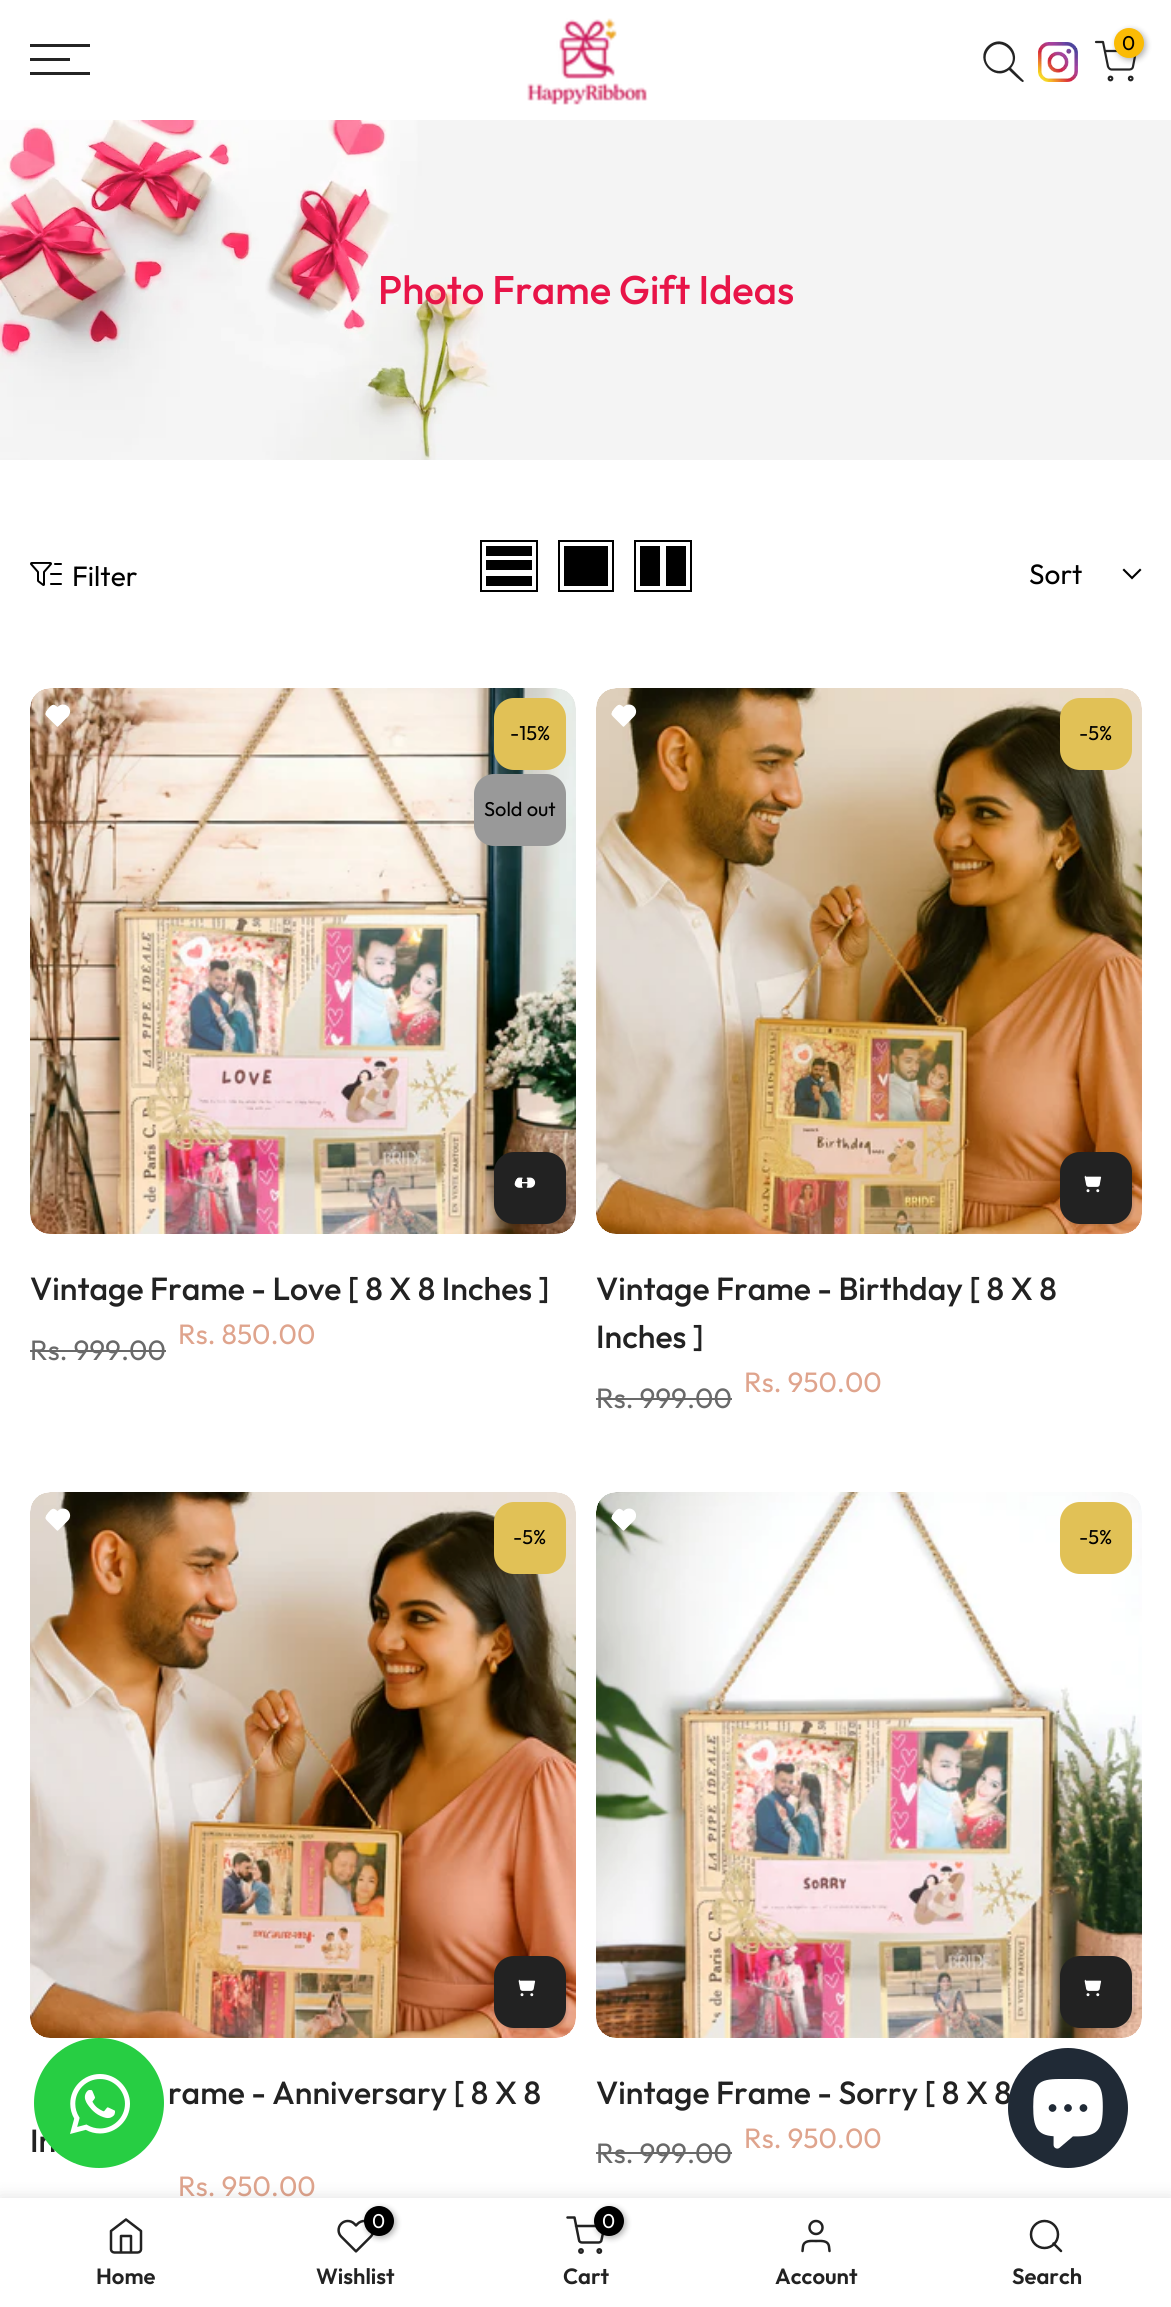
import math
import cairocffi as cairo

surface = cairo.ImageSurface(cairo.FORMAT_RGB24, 1171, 2307)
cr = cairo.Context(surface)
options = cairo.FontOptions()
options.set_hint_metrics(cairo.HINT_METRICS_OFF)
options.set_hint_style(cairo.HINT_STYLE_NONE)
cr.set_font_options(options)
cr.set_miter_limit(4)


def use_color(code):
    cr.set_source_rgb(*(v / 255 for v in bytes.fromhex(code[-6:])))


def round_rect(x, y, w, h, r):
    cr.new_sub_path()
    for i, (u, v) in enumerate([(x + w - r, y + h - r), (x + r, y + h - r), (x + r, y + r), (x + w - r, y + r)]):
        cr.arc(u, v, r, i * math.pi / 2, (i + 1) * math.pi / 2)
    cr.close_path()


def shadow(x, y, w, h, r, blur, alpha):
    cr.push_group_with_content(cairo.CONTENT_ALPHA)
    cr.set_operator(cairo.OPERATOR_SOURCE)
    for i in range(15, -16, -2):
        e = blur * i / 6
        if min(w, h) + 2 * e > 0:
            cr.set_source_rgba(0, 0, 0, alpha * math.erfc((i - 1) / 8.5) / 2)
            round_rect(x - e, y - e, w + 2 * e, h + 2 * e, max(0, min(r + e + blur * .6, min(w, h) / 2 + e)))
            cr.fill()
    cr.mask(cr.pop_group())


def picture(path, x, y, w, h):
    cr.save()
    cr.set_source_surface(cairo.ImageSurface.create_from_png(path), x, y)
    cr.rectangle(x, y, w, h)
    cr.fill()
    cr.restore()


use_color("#ffffff")
cr.paint()
use_color("#242424")
cr.rectangle(30, 44, 60, 3)
cr.fill()
cr.rectangle(30, 58, 40, 3)
cr.fill()
cr.rectangle(30, 72, 60, 3)
cr.fill()
picture("img1.png", 527, 18, 121, 87)
cr.set_fill_rule(cairo.FILL_RULE_EVEN_ODD)
cr.new_path()
cr.move_to(1009, 67)
cr.curve_to(996, 79, 977, 61, 990, 48)
cr.curve_to(1002, 36, 1021, 55, 1009, 67)
cr.close_path()
cr.move_to(1009, 70)
cr.curve_to(994, 82, 974, 60, 988, 46)
cr.curve_to(1003, 32, 1024, 53, 1011, 68)
cr.line_to(1024, 81)
cr.line_to(1023, 82)
cr.curve_to(1022, 83, 1011, 72, 1009, 70)
cr.close_path()
cr.fill()
picture("img2.png", 1038, 42, 40, 40)
cr.new_path()
cr.move_to(1096, 42)
cr.line_to(1103, 42)
cr.line_to(1108, 66.5)
cr.curve_to(1108.5, 68, 1110, 69.5, 1111.5, 69.5)
cr.line_to(1129.5, 69.5)
cr.curve_to(1131.5, 69.5, 1133, 68, 1133, 66.5)
cr.line_to(1136, 51)
cr.line_to(1105, 51)
cr.set_line_width(2.2)
cr.set_line_cap(cairo.LINE_CAP_ROUND)
cr.set_line_join(cairo.LINE_JOIN_ROUND)
cr.stroke()
use_color("#000000")
shadow(1116, 30, 30, 30, 15, 3, 0.3)
use_color("#fabb05")
cr.arc(1129, 43, 15, 0, 2 * math.pi)
cr.fill()
cr.select_font_face("Outfit")
cr.set_font_size(20)
use_color("#000000")
cr.move_to(1122, 50)
cr.show_text("0")
cr.new_path()
cr.arc(1110.5, 78.5, 1.8, 0, 2 * math.pi)
use_color("#242424")
cr.set_line_cap(cairo.LINE_CAP_BUTT)
cr.set_line_join(cairo.LINE_JOIN_MITER)
cr.stroke()
cr.arc(1130.7, 78.5, 1.8, 0, 2 * math.pi)
cr.stroke()
picture("img3.png", 0, 120, 1171, 340)
cr.select_font_face("Outfit Medium")
cr.set_font_size(40)
use_color("#e81448")
cr.move_to(378, 304)
cr.show_text("Photo Frame Gift Ideas")
picture("img4.png", 30, 562, 32, 24)
cr.select_font_face("Outfit")
cr.set_font_size(28)
use_color("#000000")
cr.move_to(72, 586)
cr.show_text("Filter")
cr.rectangle(481, 541, 56, 50)
cr.set_line_width(2)
cr.stroke()
cr.rectangle(486, 576, 46, 10)
cr.fill()
cr.rectangle(486, 560, 46, 10)
cr.fill()
cr.rectangle(486, 546, 46, 10)
cr.fill()
cr.rectangle(559, 541, 54, 50)
cr.stroke()
cr.rectangle(564, 546, 44, 40)
cr.fill()
cr.rectangle(635, 541, 56, 50)
cr.stroke()
cr.rectangle(666, 546, 20, 40)
cr.fill()
cr.rectangle(640, 546, 20, 40)
cr.fill()
cr.move_to(1029, 584)
cr.show_text("Sort")
cr.new_path()
cr.move_to(1140, 570)
cr.line_to(1132, 578)
cr.line_to(1124, 570)
cr.set_line_width(2.1)
cr.set_line_cap(cairo.LINE_CAP_SQUARE)
cr.stroke()
picture("img5.png", 30, 688, 546, 546)
picture("img6.png", 45, 704, 26, 23)
use_color("#e1c156")
round_rect(494, 698, 72, 72, 20)
cr.fill()
cr.set_font_size(20)
use_color("#000000")
cr.move_to(510, 740)
cr.show_text("-15%")
use_color("#999999")
round_rect(474, 774, 92, 72, 20)
cr.fill()
use_color("#000000")
cr.move_to(484, 816)
cr.show_text("Sold out")
use_color("#000000")
shadow(496, 1154, 72, 72, 20, 1, 0.1)
use_color("#222222")
round_rect(494, 1152, 72, 72, 20)
cr.fill()
picture("img7.png", 514, 1177, 22, 11)
cr.select_font_face("Outfit Medium")
cr.set_font_size(32)
cr.move_to(30, 1300)
cr.show_text("Vintage Frame - Love [ 8 X 8 Inches ]")
cr.select_font_face("Outfit")
cr.set_font_size(28)
use_color("#dfa48d")
cr.move_to(178, 1344)
cr.show_text("Rs. 850.00")
use_color("#696969")
cr.move_to(30, 1360)
cr.show_text("Rs. 999.00")
cr.rectangle(30, 1350, 136, 2)
cr.fill()
picture("img8.png", 596, 688, 546, 546)
picture("img9.png", 611, 704, 26, 23)
use_color("#e1c156")
round_rect(1060, 698, 72, 72, 20)
cr.fill()
cr.set_font_size(20)
use_color("#000000")
cr.move_to(1079, 740)
cr.show_text("-5%")
use_color("#000000")
shadow(1062, 1154, 72, 72, 20, 1, 0.1)
use_color("#222222")
round_rect(1060, 1152, 72, 72, 20)
cr.fill()
picture("img10.png", 1084, 1175, 18, 18)
cr.select_font_face("Outfit Medium")
cr.set_font_size(32)
cr.move_to(596, 1300)
cr.show_text("Vintage Frame - Birthday [ 8 X 8")
cr.move_to(596, 1348)
cr.show_text("Inches ]")
cr.select_font_face("Outfit")
cr.set_font_size(28)
use_color("#dfa48d")
cr.move_to(744, 1392)
cr.show_text("Rs. 950.00")
use_color("#696969")
cr.move_to(596, 1408)
cr.show_text("Rs. 999.00")
cr.rectangle(596, 1398, 136, 2)
cr.fill()
picture("img11.png", 30, 1492, 546, 546)
picture("img12.png", 45, 1508, 26, 23)
use_color("#e1c156")
round_rect(494, 1502, 72, 72, 20)
cr.fill()
cr.set_font_size(20)
use_color("#000000")
cr.move_to(513, 1544)
cr.show_text("-5%")
use_color("#000000")
shadow(496, 1958, 72, 72, 20, 1, 0.1)
use_color("#222222")
round_rect(494, 1956, 72, 72, 20)
cr.fill()
picture("img10.png", 518, 1979, 18, 18)
cr.select_font_face("Outfit Medium")
cr.set_font_size(32)
cr.move_to(168, 2104)
cr.show_text("rame - Anniversary [ 8 X 8")
cr.move_to(30, 2152)
cr.show_text("In")
cr.select_font_face("Outfit")
cr.set_font_size(28)
use_color("#dfa48d")
cr.move_to(178, 2196)
cr.show_text("Rs. 950.00")
picture("img13.png", 596, 1492, 546, 546)
picture("img14.png", 611, 1508, 25, 23)
use_color("#e1c156")
round_rect(1060, 1502, 72, 72, 20)
cr.fill()
cr.set_font_size(20)
use_color("#000000")
cr.move_to(1079, 1544)
cr.show_text("-5%")
use_color("#000000")
shadow(1062, 1958, 72, 72, 20, 1, 0.1)
use_color("#222222")
round_rect(1060, 1956, 72, 72, 20)
cr.fill()
picture("img10.png", 1084, 1979, 18, 18)
cr.select_font_face("Outfit Medium")
cr.set_font_size(32)
cr.move_to(596, 2104)
cr.show_text("Vintage Frame - Sorry [ 8 X 8")
cr.select_font_face("Outfit")
cr.set_font_size(28)
use_color("#dfa48d")
cr.move_to(744, 2148)
cr.show_text("Rs. 950.00")
use_color("#696969")
cr.move_to(596, 2163)
cr.show_text("Rs. 999.00")
cr.rectangle(596, 2152, 136, 2)
cr.fill()
use_color("#27ce43")
cr.arc(99, 2103, 65, 0, 2 * math.pi)
cr.fill()
picture("img15.png", 70, 2074, 60, 60)
use_color("#202a36")
cr.arc(1068, 2108, 60, 0, 2 * math.pi)
cr.fill()
picture("img16.png", 1033, 2079, 70, 70)
use_color("#000000")
shadow(0, 2198, 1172, 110, 0, 9, 0.12)
use_color("#ffffff")
cr.rectangle(0, 2198, 1171, 109)
cr.fill()
cr.new_path()
cr.move_to(111, 2231)
cr.line_to(126, 2219.5)
cr.line_to(141, 2231)
cr.line_to(141, 2249.5)
cr.curve_to(141, 2251, 139.5, 2252.5, 137.5, 2252.5)
cr.line_to(114.5, 2252.5)
cr.curve_to(112.5, 2252.5, 111, 2251, 111, 2249.5)
cr.close_path()
cr.move_to(121, 2252.5)
cr.line_to(121, 2236)
cr.line_to(131, 2236)
cr.line_to(131, 2252.5)
use_color("#222222")
cr.set_line_width(2.5)
cr.set_line_cap(cairo.LINE_CAP_ROUND)
cr.set_line_join(cairo.LINE_JOIN_ROUND)
cr.stroke()
cr.select_font_face("Outfit SemiBold")
cr.set_font_size(22)
cr.move_to(96, 2284)
cr.show_text("Home")
picture("img17.png", 337, 2219, 37, 34)
use_color("#000000")
shadow(366, 2208, 30, 30, 15, 3, 0.3)
use_color("#000000")
cr.arc(379, 2221, 15, 0, 2 * math.pi)
cr.fill()
cr.select_font_face("Outfit")
cr.set_font_size(20)
use_color("#ffffff")
cr.move_to(372, 2228)
cr.show_text("0")
cr.select_font_face("Outfit SemiBold")
cr.set_font_size(22)
use_color("#222222")
cr.move_to(316, 2284)
cr.show_text("Wishlist")
cr.new_path()
cr.move_to(567.5, 2217.5)
cr.line_to(574.5, 2217.5)
cr.line_to(579, 2240)
cr.curve_to(579, 2241.5, 580.5, 2242.5, 582, 2242.5)
cr.line_to(598.5, 2242.5)
cr.curve_to(600, 2242.5, 601.5, 2241.5, 601.5, 2240)
cr.line_to(604.5, 2226)
cr.line_to(576, 2226)
cr.stroke()
use_color("#000000")
shadow(596, 2208, 30, 30, 15, 3, 0.3)
use_color("#000000")
cr.arc(609, 2221, 15, 0, 2 * math.pi)
cr.fill()
cr.select_font_face("Outfit")
cr.set_font_size(20)
use_color("#ffffff")
cr.move_to(602, 2228)
cr.show_text("0")
cr.new_path()
cr.arc(581, 2251, 1.7, 0, 2 * math.pi)
use_color("#222222")
cr.set_line_cap(cairo.LINE_CAP_BUTT)
cr.set_line_join(cairo.LINE_JOIN_MITER)
cr.stroke()
cr.arc(599.3, 2251, 1.7, 0, 2 * math.pi)
cr.stroke()
cr.select_font_face("Outfit SemiBold")
cr.set_font_size(22)
cr.move_to(563, 2284)
cr.show_text("Cart")
cr.new_path()
cr.arc(816, 2227.5, 6.5, 0, 2 * math.pi)
cr.stroke()
cr.new_path()
cr.move_to(829.5, 2251)
cr.line_to(829, 2246.5)
cr.curve_to(828, 2240, 821, 2241, 816, 2241)
cr.curve_to(811, 2241, 804, 2240, 803, 2246.5)
cr.line_to(802.5, 2251)
cr.set_line_cap(cairo.LINE_CAP_ROUND)
cr.set_line_join(cairo.LINE_JOIN_ROUND)
cr.stroke()
cr.move_to(775, 2284)
cr.show_text("Account")
cr.new_path()
cr.arc(1044.5, 2234.5, 13.5, 0, 2 * math.pi)
cr.set_line_cap(cairo.LINE_CAP_BUTT)
cr.set_line_join(cairo.LINE_JOIN_MITER)
cr.stroke()
cr.new_path()
cr.move_to(1061, 2251)
cr.line_to(1053.5, 2243.5)
cr.set_line_cap(cairo.LINE_CAP_ROUND)
cr.set_line_join(cairo.LINE_JOIN_ROUND)
cr.stroke()
cr.move_to(1012, 2284)
cr.show_text("Search")
surface.write_to_png("result.png")
